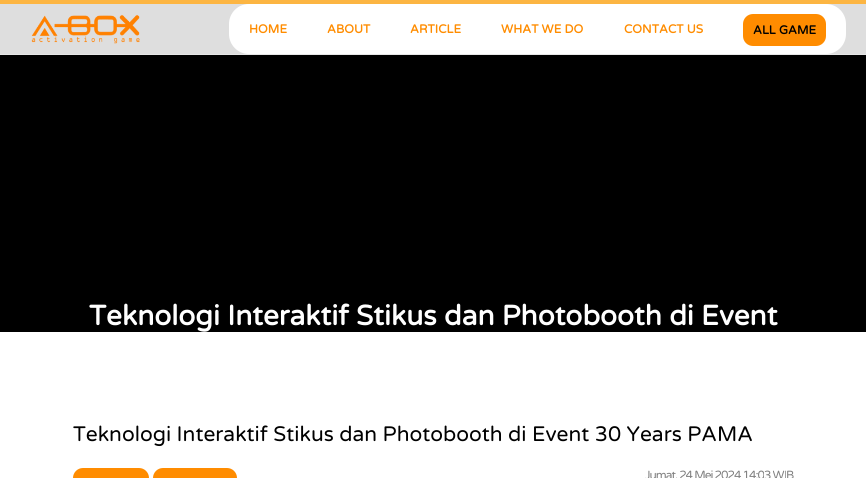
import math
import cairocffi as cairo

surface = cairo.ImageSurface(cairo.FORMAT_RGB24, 866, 478)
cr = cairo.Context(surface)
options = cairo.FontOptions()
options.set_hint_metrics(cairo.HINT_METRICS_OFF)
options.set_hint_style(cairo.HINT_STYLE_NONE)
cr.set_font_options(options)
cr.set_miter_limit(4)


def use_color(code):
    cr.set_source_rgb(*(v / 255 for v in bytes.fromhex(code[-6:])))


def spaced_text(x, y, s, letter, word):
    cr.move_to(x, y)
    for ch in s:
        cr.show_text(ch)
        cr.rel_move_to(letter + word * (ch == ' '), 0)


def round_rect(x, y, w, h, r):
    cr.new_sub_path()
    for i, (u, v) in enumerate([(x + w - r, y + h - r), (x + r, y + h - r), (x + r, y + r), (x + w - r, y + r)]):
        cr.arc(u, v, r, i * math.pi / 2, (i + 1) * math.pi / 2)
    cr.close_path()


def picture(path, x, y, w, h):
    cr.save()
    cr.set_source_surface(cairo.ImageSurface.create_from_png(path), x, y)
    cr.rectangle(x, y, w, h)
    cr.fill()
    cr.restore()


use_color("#ffffff")
cr.paint()
use_color("#000000")
cr.new_path()
cr.move_to(0, 0)
cr.line_to(866, 0)
cr.line_to(866, 336)
cr.curve_to(613, 462, 253, 462, 0, 336)
cr.close_path()
cr.fill()
use_color("#dedede")
cr.rectangle(0, 4, 866, 50)
cr.fill()
use_color("#fcb542")
cr.rectangle(0, 0, 866, 4)
cr.fill()
use_color("#e7e7e7")
cr.rectangle(0, 54, 866, 1)
cr.fill()
picture("img1.png", 31, 14, 109, 30)
use_color("#ffffff")
round_rect(229, 4, 617, 50, 20)
cr.fill()
cr.select_font_face("Varela Round", cairo.FONT_SLANT_NORMAL, cairo.FONT_WEIGHT_BOLD)
cr.set_font_size(12)
use_color("#ff8c00")
cr.move_to(249, 33)
cr.show_text("HOME")
cr.move_to(327, 33)
cr.show_text("ABOUT")
cr.move_to(410, 33)
cr.show_text("ARTICLE")
cr.move_to(501, 33)
cr.show_text("WHAT WE DO")
cr.move_to(624, 33)
cr.show_text("CONTACT US")
round_rect(743, 14, 83, 32, 10)
cr.fill()
use_color("#000000")
cr.move_to(753, 34)
cr.show_text("ALL GAME")
cr.set_font_size(28)
use_color("#ffffff")
cr.move_to(89, 325)
cr.show_text("Teknologi Interaktif Stikus dan Photobooth di Event")
cr.rectangle(0, 332, 866, 99)
cr.fill()
cr.select_font_face("Varela Round")
cr.set_font_size(21)
use_color("#000000")
cr.move_to(73, 441)
cr.show_text("Teknologi Interaktif Stikus dan Photobooth di Event 30 Years PAMA")
use_color("#ff8c00")
round_rect(73, 468, 76, 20, 10)
cr.fill()
round_rect(153, 468, 84, 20, 10)
cr.fill()
cr.set_font_size(11.9)
use_color("#808080")
spaced_text(645, 479, "Jumat, 24 Mei 2024 14:03 WIB", -1, 0)
surface.write_to_png("result.png")
